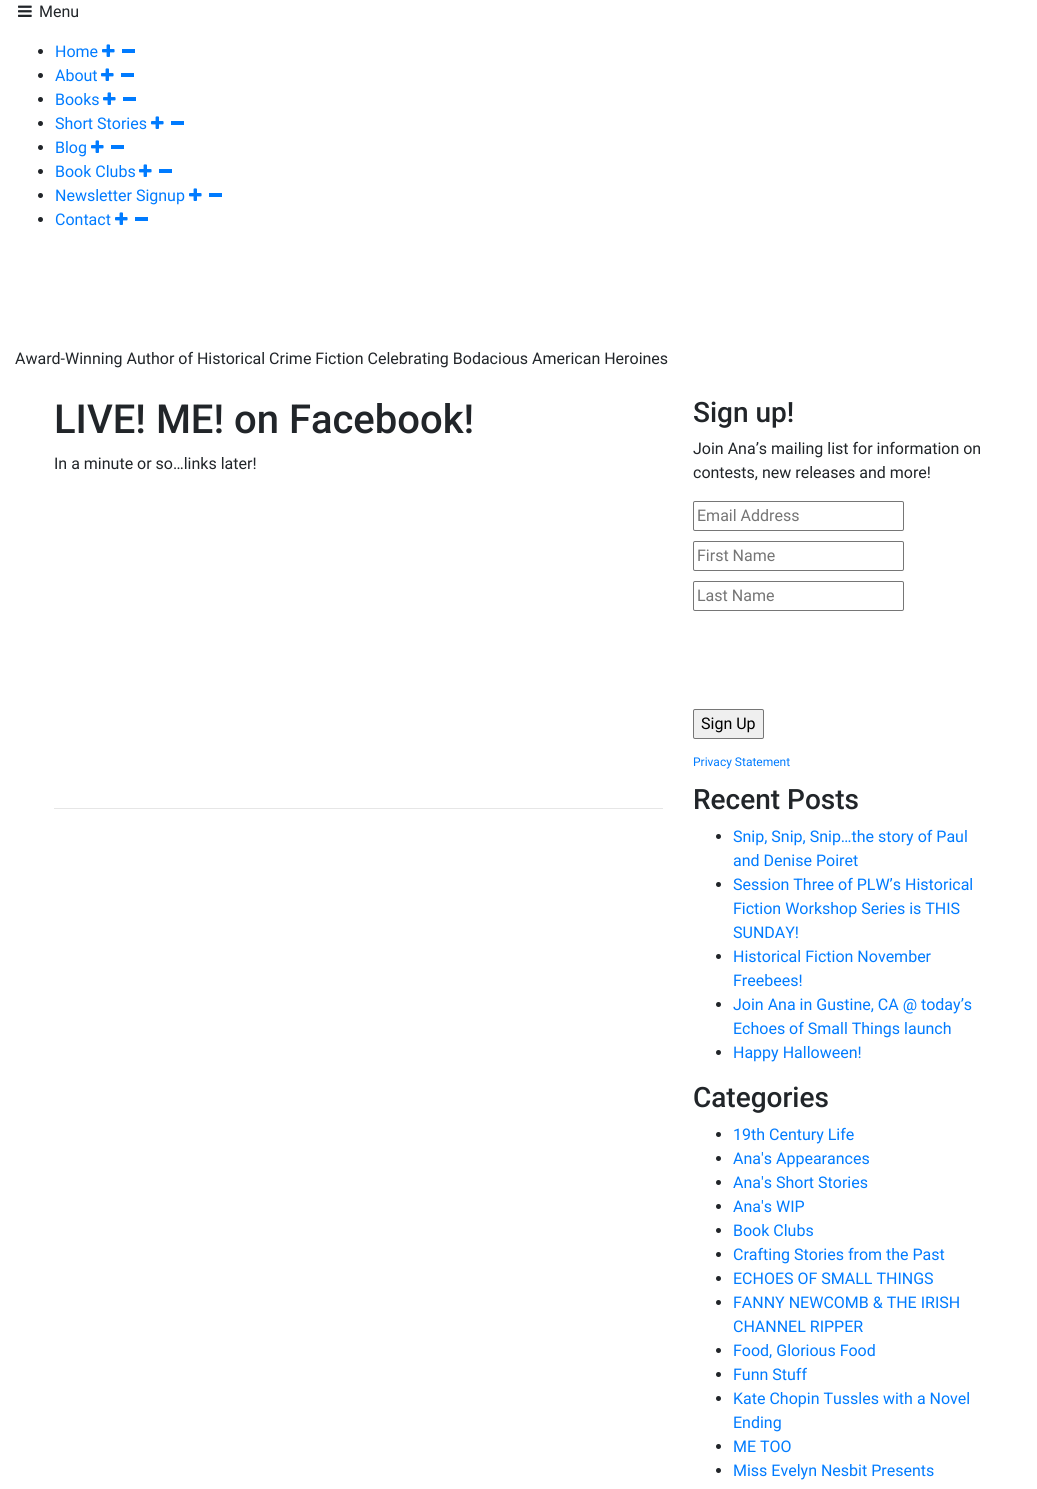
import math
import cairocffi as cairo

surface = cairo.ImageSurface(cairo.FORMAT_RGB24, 1037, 1489)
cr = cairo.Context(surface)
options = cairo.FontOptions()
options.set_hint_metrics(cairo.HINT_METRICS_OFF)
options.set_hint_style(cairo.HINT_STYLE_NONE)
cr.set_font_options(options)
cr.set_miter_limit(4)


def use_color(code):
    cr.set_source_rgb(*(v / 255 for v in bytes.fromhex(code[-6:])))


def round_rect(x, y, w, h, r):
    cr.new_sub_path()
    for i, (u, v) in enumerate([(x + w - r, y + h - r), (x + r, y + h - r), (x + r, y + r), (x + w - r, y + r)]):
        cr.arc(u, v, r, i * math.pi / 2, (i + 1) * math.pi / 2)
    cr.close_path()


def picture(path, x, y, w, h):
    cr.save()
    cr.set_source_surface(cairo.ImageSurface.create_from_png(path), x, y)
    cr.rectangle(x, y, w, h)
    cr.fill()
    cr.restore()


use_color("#ffffff")
cr.paint()
picture("img1.png", 18, 5, 14, 12)
cr.select_font_face("Roboto")
cr.set_font_size(16)
use_color("#212529")
cr.move_to(39, 17)
cr.show_text("Menu")
cr.new_path()
cr.arc(40.5, 51.5, 2.5, 0, 2 * math.pi)
cr.fill()
use_color("#007bff")
cr.move_to(55, 57)
cr.show_text("Home")
picture("img2.png", 102, 44, 13, 13)
cr.rectangle(122, 49, 13, 4)
cr.fill()
use_color("#212529")
cr.arc(40.5, 75.5, 2.5, 0, 2 * math.pi)
cr.fill()
use_color("#007bff")
cr.move_to(55, 81)
cr.show_text("About")
picture("img2.png", 101, 68, 13, 13)
cr.rectangle(121, 73, 13, 4)
cr.fill()
use_color("#212529")
cr.arc(40.5, 99.5, 2.5, 0, 2 * math.pi)
cr.fill()
use_color("#007bff")
cr.move_to(55, 105)
cr.show_text("Books")
picture("img2.png", 103, 92, 13, 13)
cr.rectangle(123, 97, 13, 4)
cr.fill()
use_color("#212529")
cr.arc(40.5, 123.5, 2.5, 0, 2 * math.pi)
cr.fill()
use_color("#007bff")
cr.move_to(55, 129)
cr.show_text("Short Stories")
picture("img2.png", 151, 116, 13, 13)
cr.rectangle(171, 121, 13, 4)
cr.fill()
use_color("#212529")
cr.arc(40.5, 147.5, 2.5, 0, 2 * math.pi)
cr.fill()
use_color("#007bff")
cr.move_to(55, 153)
cr.show_text("Blog")
picture("img2.png", 91, 140, 13, 13)
cr.rectangle(111, 145, 13, 4)
cr.fill()
use_color("#212529")
cr.arc(40.5, 171.5, 2.5, 0, 2 * math.pi)
cr.fill()
use_color("#007bff")
cr.move_to(55, 177)
cr.show_text("Book Clubs")
picture("img2.png", 139, 164, 13, 13)
cr.rectangle(159, 169, 13, 4)
cr.fill()
use_color("#212529")
cr.arc(40.5, 195.5, 2.5, 0, 2 * math.pi)
cr.fill()
use_color("#007bff")
cr.move_to(55, 201)
cr.show_text("Newsletter Signup")
picture("img2.png", 189, 188, 13, 13)
cr.rectangle(209, 193, 13, 4)
cr.fill()
use_color("#212529")
cr.arc(40.5, 219.5, 2.5, 0, 2 * math.pi)
cr.fill()
use_color("#007bff")
cr.move_to(55, 225)
cr.show_text("Contact")
picture("img2.png", 115, 212, 13, 13)
cr.rectangle(135, 217, 13, 4)
cr.fill()
use_color("#212529")
cr.move_to(15, 364)
cr.show_text("Award-Winning Author of Historical Crime Fiction Celebrating Bodacious American Heroines")
cr.select_font_face("Roboto Medium")
cr.set_font_size(40)
cr.move_to(54, 433)
cr.show_text("LIVE! ME! on Facebook!")
cr.select_font_face("Roboto")
cr.set_font_size(16)
cr.move_to(54, 469)
cr.show_text("In a minute or so…links later!")
use_color("#e6e6e6")
cr.rectangle(54, 808, 609, 1)
cr.fill()
cr.select_font_face("Roboto Medium")
cr.set_font_size(28)
use_color("#212529")
cr.move_to(693, 422)
cr.show_text("Sign up!")
cr.select_font_face("Roboto")
cr.set_font_size(16)
cr.move_to(693, 454)
cr.show_text("Join Ana’s mailing list for information on")
cr.move_to(693, 478)
cr.show_text("contests, new releases and more!")
round_rect(693.5, 501.5, 210, 29, 1.5)
use_color("#767676")
cr.set_line_width(1)
cr.stroke()
use_color("#757575")
cr.move_to(697, 521)
cr.show_text("Email Address")
round_rect(693.5, 541.5, 210, 29, 1.5)
use_color("#767676")
cr.stroke()
use_color("#757575")
cr.move_to(697, 561)
cr.show_text("First Name")
round_rect(693.5, 581.5, 210, 29, 1.5)
use_color("#767676")
cr.stroke()
use_color("#757575")
cr.move_to(697, 601)
cr.show_text("Last Name")
use_color("#efefef")
round_rect(693.5, 709.5, 70, 29, 1.5)
cr.fill_preserve()
use_color("#767676")
cr.stroke()
use_color("#000000")
cr.move_to(701, 729)
cr.show_text("Sign Up")
cr.set_font_size(12)
use_color("#007bff")
cr.move_to(693, 766)
cr.show_text("Privacy Statement")
cr.select_font_face("Roboto Medium")
cr.set_font_size(28)
use_color("#212529")
cr.move_to(693, 809)
cr.show_text("Recent Posts")
cr.new_path()
cr.arc(718.5, 836.5, 2.5, 0, 2 * math.pi)
cr.fill()
cr.select_font_face("Roboto")
cr.set_font_size(16)
use_color("#007bff")
cr.move_to(733, 842)
cr.show_text("Snip, Snip, Snip…the story of Paul")
cr.move_to(733, 866)
cr.show_text("and Denise Poiret")
use_color("#212529")
cr.new_path()
cr.arc(718.5, 884.5, 2.5, 0, 2 * math.pi)
cr.fill()
use_color("#007bff")
cr.move_to(733, 890)
cr.show_text("Session Three of PLW’s Historical")
cr.move_to(733, 914)
cr.show_text("Fiction Workshop Series is THIS")
cr.move_to(733, 938)
cr.show_text("SUNDAY!")
use_color("#212529")
cr.new_path()
cr.arc(718.5, 956.5, 2.5, 0, 2 * math.pi)
cr.fill()
use_color("#007bff")
cr.move_to(733, 962)
cr.show_text("Historical Fiction November")
cr.move_to(733, 986)
cr.show_text("Freebees!")
use_color("#212529")
cr.new_path()
cr.arc(718.5, 1004.5, 2.5, 0, 2 * math.pi)
cr.fill()
use_color("#007bff")
cr.move_to(733, 1010)
cr.show_text("Join Ana in Gustine, CA @ today’s")
cr.move_to(733, 1034)
cr.show_text("Echoes of Small Things launch")
use_color("#212529")
cr.new_path()
cr.arc(718.5, 1052.5, 2.5, 0, 2 * math.pi)
cr.fill()
use_color("#007bff")
cr.move_to(733, 1058)
cr.show_text("Happy Halloween!")
cr.select_font_face("Roboto Medium")
cr.set_font_size(28)
use_color("#212529")
cr.move_to(693, 1107)
cr.show_text("Categories")
cr.new_path()
cr.arc(718.5, 1134.5, 2.5, 0, 2 * math.pi)
cr.fill()
cr.select_font_face("Roboto")
cr.set_font_size(16)
use_color("#007bff")
cr.move_to(733, 1140)
cr.show_text("19th Century Life")
use_color("#212529")
cr.new_path()
cr.arc(718.5, 1158.5, 2.5, 0, 2 * math.pi)
cr.fill()
use_color("#007bff")
cr.move_to(733, 1164)
cr.show_text("Ana's Appearances")
use_color("#212529")
cr.new_path()
cr.arc(718.5, 1182.5, 2.5, 0, 2 * math.pi)
cr.fill()
use_color("#007bff")
cr.move_to(733, 1188)
cr.show_text("Ana's Short Stories")
use_color("#212529")
cr.new_path()
cr.arc(718.5, 1206.5, 2.5, 0, 2 * math.pi)
cr.fill()
use_color("#007bff")
cr.move_to(733, 1212)
cr.show_text("Ana's WIP")
use_color("#212529")
cr.new_path()
cr.arc(718.5, 1230.5, 2.5, 0, 2 * math.pi)
cr.fill()
use_color("#007bff")
cr.move_to(733, 1236)
cr.show_text("Book Clubs")
use_color("#212529")
cr.new_path()
cr.arc(718.5, 1254.5, 2.5, 0, 2 * math.pi)
cr.fill()
use_color("#007bff")
cr.move_to(733, 1260)
cr.show_text("Crafting Stories from the Past")
use_color("#212529")
cr.new_path()
cr.arc(718.5, 1278.5, 2.5, 0, 2 * math.pi)
cr.fill()
use_color("#007bff")
cr.move_to(733, 1284)
cr.show_text("ECHOES OF SMALL THINGS")
use_color("#212529")
cr.new_path()
cr.arc(718.5, 1302.5, 2.5, 0, 2 * math.pi)
cr.fill()
use_color("#007bff")
cr.move_to(733, 1308)
cr.show_text("FANNY NEWCOMB & THE IRISH")
cr.move_to(733, 1332)
cr.show_text("CHANNEL RIPPER")
use_color("#212529")
cr.new_path()
cr.arc(718.5, 1350.5, 2.5, 0, 2 * math.pi)
cr.fill()
use_color("#007bff")
cr.move_to(733, 1356)
cr.show_text("Food, Glorious Food")
use_color("#212529")
cr.new_path()
cr.arc(718.5, 1374.5, 2.5, 0, 2 * math.pi)
cr.fill()
use_color("#007bff")
cr.move_to(733, 1380)
cr.show_text("Funn Stuff")
use_color("#212529")
cr.new_path()
cr.arc(718.5, 1398.5, 2.5, 0, 2 * math.pi)
cr.fill()
use_color("#007bff")
cr.move_to(733, 1404)
cr.show_text("Kate Chopin Tussles with a Novel")
cr.move_to(733, 1428)
cr.show_text("Ending")
use_color("#212529")
cr.new_path()
cr.arc(718.5, 1446.5, 2.5, 0, 2 * math.pi)
cr.fill()
use_color("#007bff")
cr.move_to(733, 1452)
cr.show_text("ME TOO")
use_color("#212529")
cr.new_path()
cr.arc(718.5, 1470.5, 2.5, 0, 2 * math.pi)
cr.fill()
use_color("#007bff")
cr.move_to(733, 1476)
cr.show_text("Miss Evelyn Nesbit Presents")
surface.write_to_png("result.png")
